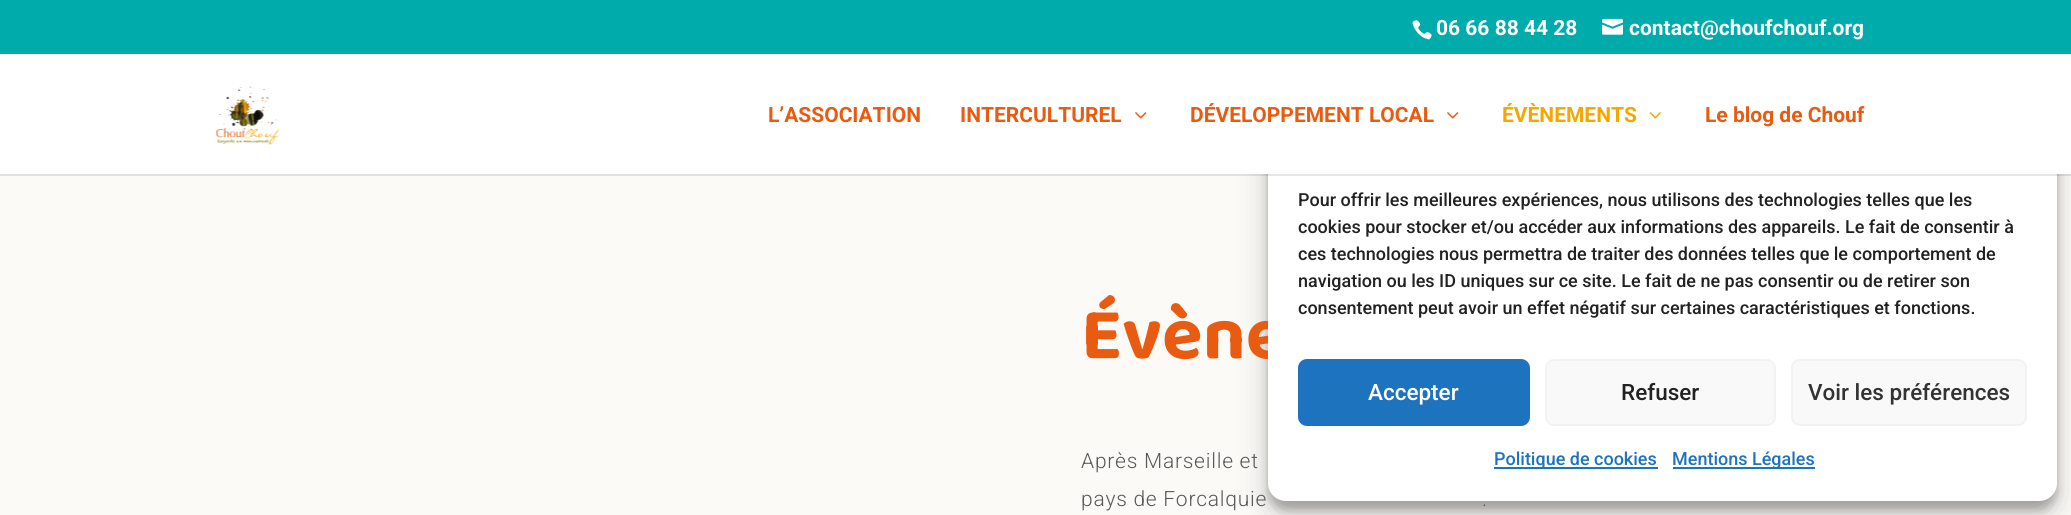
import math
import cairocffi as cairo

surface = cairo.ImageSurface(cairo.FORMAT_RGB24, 2071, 515)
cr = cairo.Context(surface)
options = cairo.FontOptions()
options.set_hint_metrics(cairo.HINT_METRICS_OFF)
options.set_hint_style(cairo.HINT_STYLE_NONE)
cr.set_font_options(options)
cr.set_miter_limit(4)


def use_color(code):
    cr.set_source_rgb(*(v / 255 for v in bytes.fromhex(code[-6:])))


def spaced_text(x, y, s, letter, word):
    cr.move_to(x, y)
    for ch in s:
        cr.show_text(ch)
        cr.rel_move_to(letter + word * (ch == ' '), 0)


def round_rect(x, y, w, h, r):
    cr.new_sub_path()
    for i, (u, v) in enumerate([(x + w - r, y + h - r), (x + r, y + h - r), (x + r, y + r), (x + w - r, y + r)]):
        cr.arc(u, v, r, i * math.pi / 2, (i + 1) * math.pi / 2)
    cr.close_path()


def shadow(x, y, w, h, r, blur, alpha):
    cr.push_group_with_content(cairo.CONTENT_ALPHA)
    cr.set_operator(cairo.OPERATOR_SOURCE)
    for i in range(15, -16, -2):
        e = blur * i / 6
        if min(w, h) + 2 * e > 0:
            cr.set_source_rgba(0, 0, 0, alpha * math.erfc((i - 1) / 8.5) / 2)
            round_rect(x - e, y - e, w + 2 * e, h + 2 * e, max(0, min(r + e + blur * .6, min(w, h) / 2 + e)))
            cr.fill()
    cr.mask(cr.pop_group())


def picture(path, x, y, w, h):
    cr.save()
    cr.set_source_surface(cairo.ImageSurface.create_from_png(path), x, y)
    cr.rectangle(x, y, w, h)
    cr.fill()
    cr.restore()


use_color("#fcfaf7")
cr.paint()
use_color("#00abab")
cr.rectangle(0, 0, 2071, 54)
cr.fill()
picture("img1.png", 1412, 20, 20, 20)
cr.select_font_face("Roboto", cairo.FONT_SLANT_NORMAL, cairo.FONT_WEIGHT_BOLD)
cr.set_font_size(21)
use_color("#ffffff")
cr.move_to(1436, 35)
cr.show_text("06 66 88 44 28")
picture("img2.png", 1602, 18, 21, 17)
cr.move_to(1629, 35)
cr.show_text("contact@choufchouf.org")
use_color("#000000")
shadow(1268, 107, 789, 403, 18, 4.5, 0.23)
shadow(1268, 113, 789, 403, 18, 15, 0.19)
cr.select_font_face("Baloo 2", cairo.FONT_SLANT_NORMAL, cairo.FONT_WEIGHT_BOLD)
cr.set_font_size(75)
use_color("#e85b10")
cr.move_to(1081, 358)
cr.show_text("Évène")
use_color("#ffffff")
round_rect(1268, 98, 789, 403, 18)
cr.fill()
cr.set_source_rgba(0, 0, 0, 0.1)
cr.new_path()
cr.move_to(0, 174)
cr.line_to(0, 176)
cr.line_to(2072, 176)
cr.line_to(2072, 56)
cr.line_to(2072, 174)
cr.close_path()
cr.fill()
use_color("#ffffff")
cr.rectangle(0, 54, 2071, 120)
cr.fill()
picture("img3.png", 215, 86, 64, 59)
cr.select_font_face("Roboto", cairo.FONT_SLANT_NORMAL, cairo.FONT_WEIGHT_BOLD)
cr.set_font_size(21)
use_color("#e85b10")
cr.move_to(768, 122)
cr.show_text("L’ASSOCIATION")
cr.move_to(960, 122)
cr.show_text("INTERCULTUREL")
picture("img4.png", 1135, 112, 12, 7)
cr.move_to(1190, 122)
cr.show_text("DÉVELOPPEMENT LOCAL")
picture("img4.png", 1447, 112, 12, 7)
use_color("#f5a700")
cr.move_to(1502, 122)
cr.show_text("ÉVÈNEMENTS")
picture("img5.png", 1649, 112, 12, 7)
use_color("#e85b10")
cr.move_to(1705, 122)
cr.show_text("Le blog de Chouf")
cr.select_font_face("Roboto Light")
use_color("#595959")
spaced_text(1081, 468, "Après Marseille et", 0.75, 0)
spaced_text(1081, 506, "pays de Forcalquie", 0.75, 0)
spaced_text(1482, 506, ".", 0.75, 0)
cr.select_font_face("Roboto Medium")
cr.set_font_size(18)
use_color("#222222")
cr.move_to(1298, 206)
cr.show_text("Pour offrir les meilleures expériences, nous utilisons des technologies telles que les")
cr.move_to(1298, 233)
cr.show_text("cookies pour stocker et/ou accéder aux informations des appareils. Le fait de consentir à")
cr.move_to(1298, 260)
cr.show_text("ces technologies nous permettra de traiter des données telles que le comportement de")
cr.move_to(1298, 287)
cr.show_text("navigation ou les ID uniques sur ce site. Le fait de ne pas consentir ou de retirer son")
cr.move_to(1298, 314)
cr.show_text("consentement peut avoir un effet négatif sur certaines caractéristiques et fonctions.")
use_color("#1e73be")
round_rect(1299, 360, 230, 65, 8)
cr.fill_preserve()
cr.stroke()
cr.set_font_size(22.5)
use_color("#ffffff")
cr.move_to(1368, 400)
cr.show_text("Accepter")
use_color("#f9f9f9")
round_rect(1546, 360, 229, 65, 8)
cr.fill_preserve()
use_color("#f2f2f2")
cr.stroke()
use_color("#222222")
cr.move_to(1621, 400)
cr.show_text("Refuser")
use_color("#f9f9f9")
round_rect(1792, 360, 234, 65, 8)
cr.fill_preserve()
use_color("#f2f2f2")
cr.stroke()
use_color("#333333")
cr.move_to(1808, 400)
cr.show_text("Voir les préférences")
use_color("#1e73be")
cr.rectangle(1494, 467, 164, 2)
cr.fill()
cr.set_font_size(18)
cr.move_to(1494, 465)
cr.show_text("Politique de cookies")
cr.rectangle(1673, 467, 142, 2)
cr.fill()
cr.move_to(1672, 465)
cr.show_text("Mentions Légales")
surface.write_to_png("result.png")
